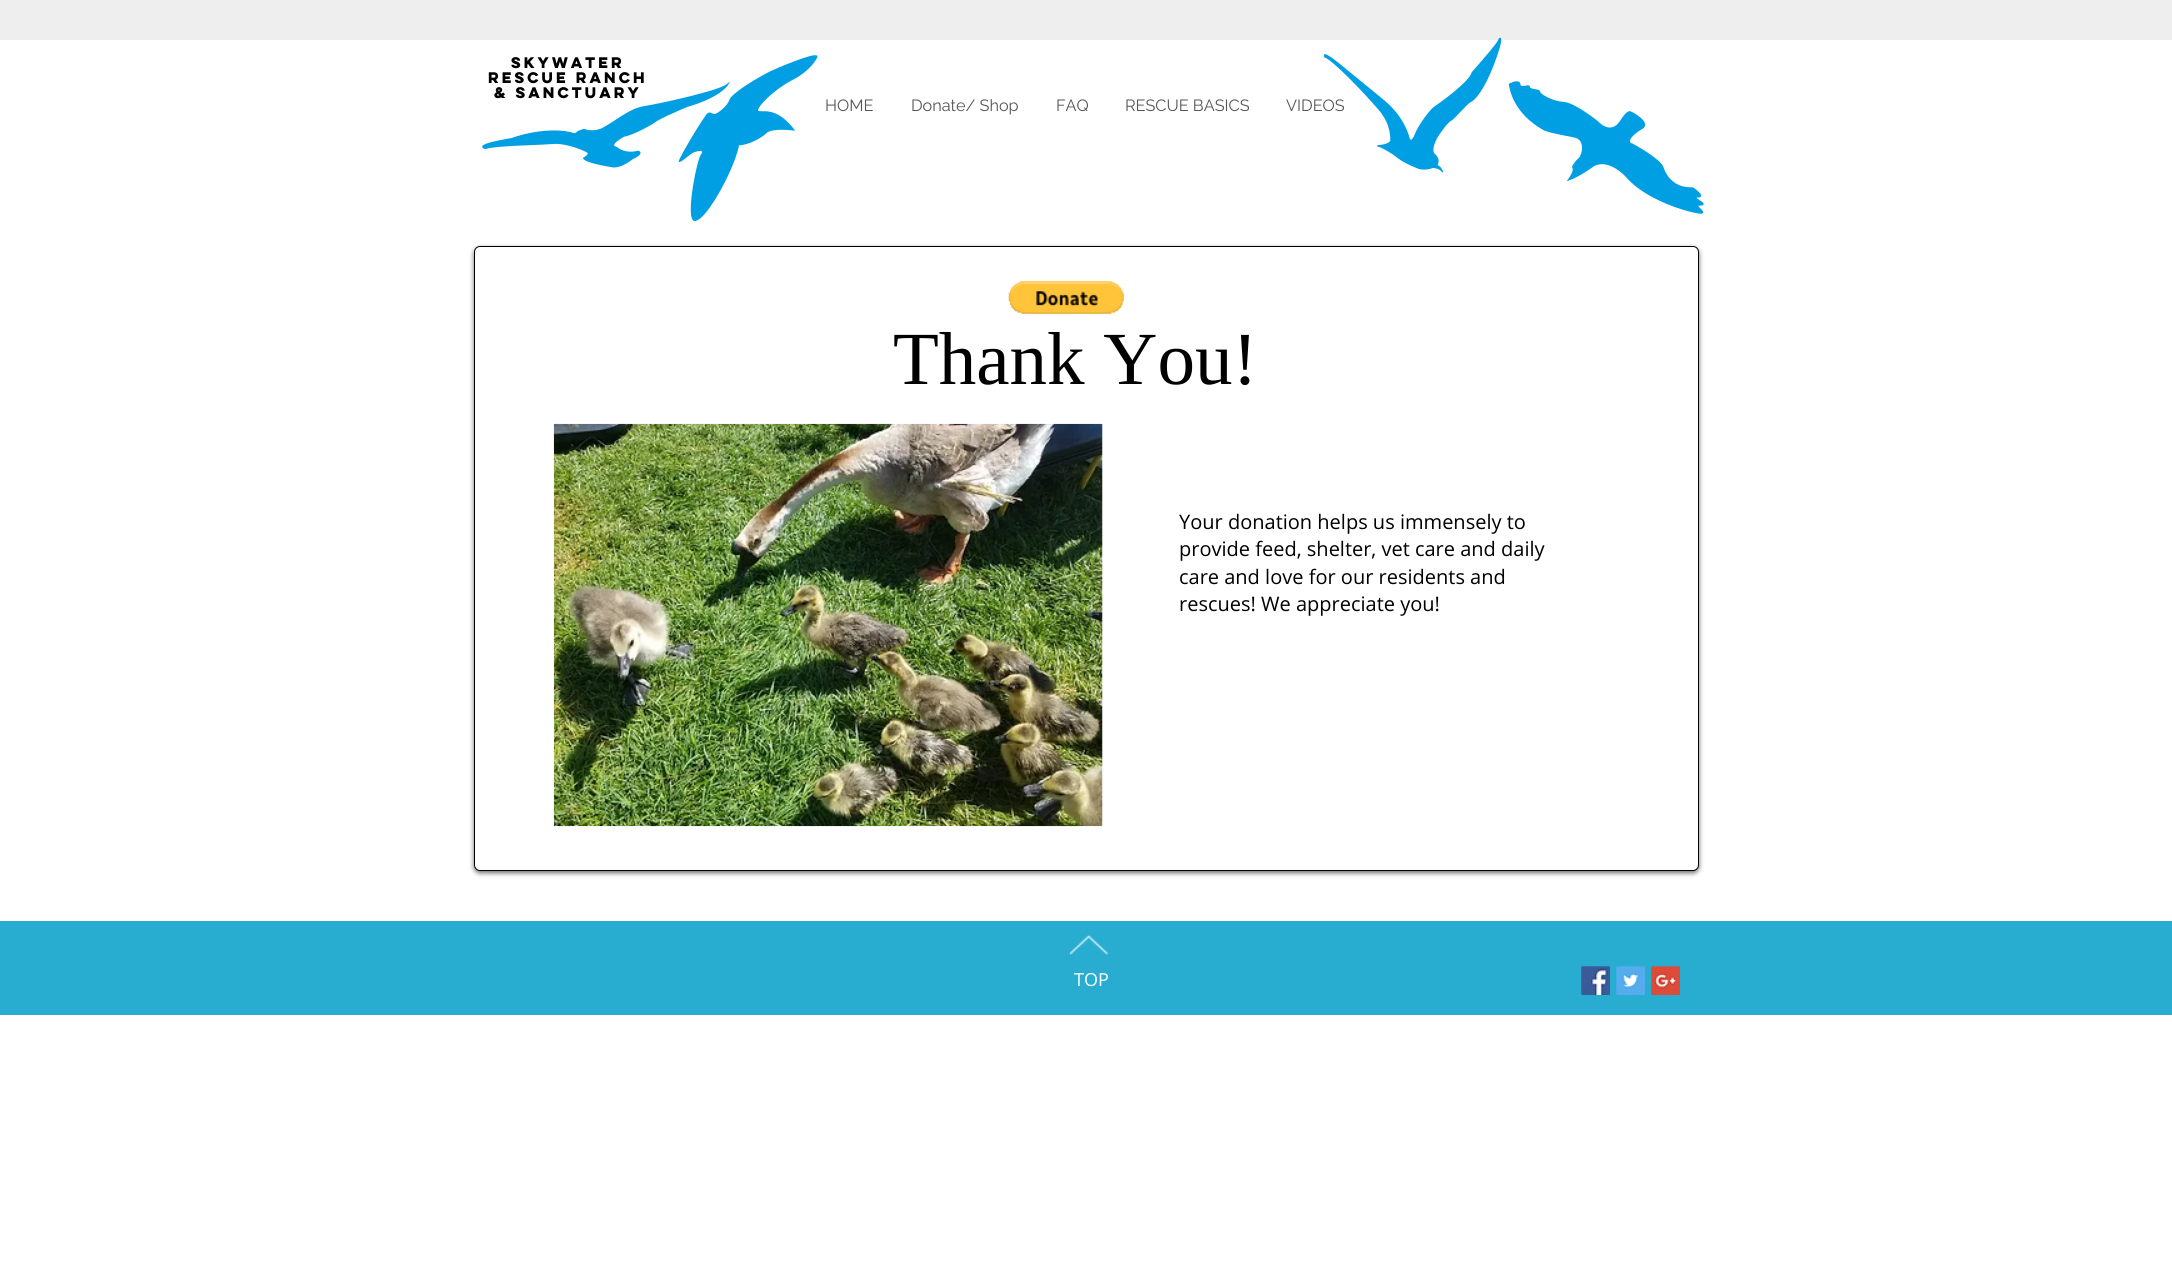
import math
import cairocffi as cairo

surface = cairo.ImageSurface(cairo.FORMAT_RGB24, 2172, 1270)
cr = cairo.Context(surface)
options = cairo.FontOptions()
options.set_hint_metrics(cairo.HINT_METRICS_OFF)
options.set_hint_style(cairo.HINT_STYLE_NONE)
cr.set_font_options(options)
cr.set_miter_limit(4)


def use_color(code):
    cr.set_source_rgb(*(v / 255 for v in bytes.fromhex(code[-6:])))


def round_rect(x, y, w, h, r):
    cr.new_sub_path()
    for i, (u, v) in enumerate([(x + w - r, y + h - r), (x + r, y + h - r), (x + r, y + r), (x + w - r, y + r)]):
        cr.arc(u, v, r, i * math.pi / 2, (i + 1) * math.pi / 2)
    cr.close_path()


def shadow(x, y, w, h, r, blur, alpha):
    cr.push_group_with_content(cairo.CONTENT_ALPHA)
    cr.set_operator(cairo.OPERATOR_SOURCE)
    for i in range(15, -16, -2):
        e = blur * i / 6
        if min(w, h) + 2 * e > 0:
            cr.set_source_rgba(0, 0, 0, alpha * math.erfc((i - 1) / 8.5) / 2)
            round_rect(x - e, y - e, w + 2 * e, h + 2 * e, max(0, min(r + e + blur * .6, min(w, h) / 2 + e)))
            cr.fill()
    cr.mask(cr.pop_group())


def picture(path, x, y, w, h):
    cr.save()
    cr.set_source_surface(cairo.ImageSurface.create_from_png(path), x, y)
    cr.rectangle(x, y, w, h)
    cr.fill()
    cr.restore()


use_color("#ffffff")
cr.paint()
use_color("#eeeeee")
cr.rectangle(0, 0, 2172, 40)
cr.fill()
cr.select_font_face("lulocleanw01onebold", cairo.FONT_SLANT_NORMAL, cairo.FONT_WEIGHT_BOLD)
cr.set_font_size(13.75)
use_color("#000000")
cr.move_to(511, 68)
cr.show_text("SkyWater")
picture("img1.png", 678, 55, 140, 166)
picture("img3.png", 482, 81, 249, 87)
cr.move_to(488, 83)
cr.show_text("Rescue Ranch")
cr.move_to(494, 98)
cr.show_text("& Sanctuary")
cr.select_font_face("Raleway")
cr.set_font_size(16.25)
use_color("#555555")
cr.move_to(1286, 111)
cr.show_text("VIDEOS")
picture("img2.png", 1323, 37, 179, 136)
cr.move_to(825, 111)
cr.show_text("HOME")
cr.move_to(911, 111)
cr.show_text("Donate/ Shop")
cr.move_to(1056, 111)
cr.show_text("FAQ")
cr.move_to(1125, 111)
cr.show_text("RESCUE BASICS")
picture("img4.png", 1508, 81, 196, 133)
use_color("#000000")
shadow(474, 248, 1225, 625, 6, 2.5, 0.6)
use_color("#ffffff")
round_rect(474.5, 246.5, 1224, 624, 5.5)
cr.fill_preserve()
use_color("#000000")
cr.set_line_width(1)
cr.stroke()
picture("img5.png", 1008, 281, 116, 33)
cr.select_font_face("Liberation Serif")
cr.set_font_size(75)
cr.move_to(893, 384)
cr.show_text("Thank You!")
picture("img6.png", 553, 423, 550, 404)
cr.select_font_face("Open Sans")
cr.set_font_size(20)
cr.move_to(1179, 529)
cr.show_text("Your donation helps us immensely to")
cr.move_to(1179, 556)
cr.show_text("provide feed, shelter, vet care and daily")
cr.move_to(1179, 584)
cr.show_text("care and love for our residents and")
cr.move_to(1179, 611)
cr.show_text("rescues! We appreciate you!")
use_color("#28add1")
cr.rectangle(0, 921, 2172, 94)
cr.fill()
picture("img7.png", 1069, 935, 39, 20)
cr.set_font_size(18)
use_color("#ffffff")
cr.move_to(1074, 986)
cr.show_text("TOP")
picture("img8.png", 1581, 966, 29, 29)
picture("img9.png", 1616, 966, 29, 29)
picture("img10.png", 1651, 966, 29, 29)
surface.write_to_png("result.png")
